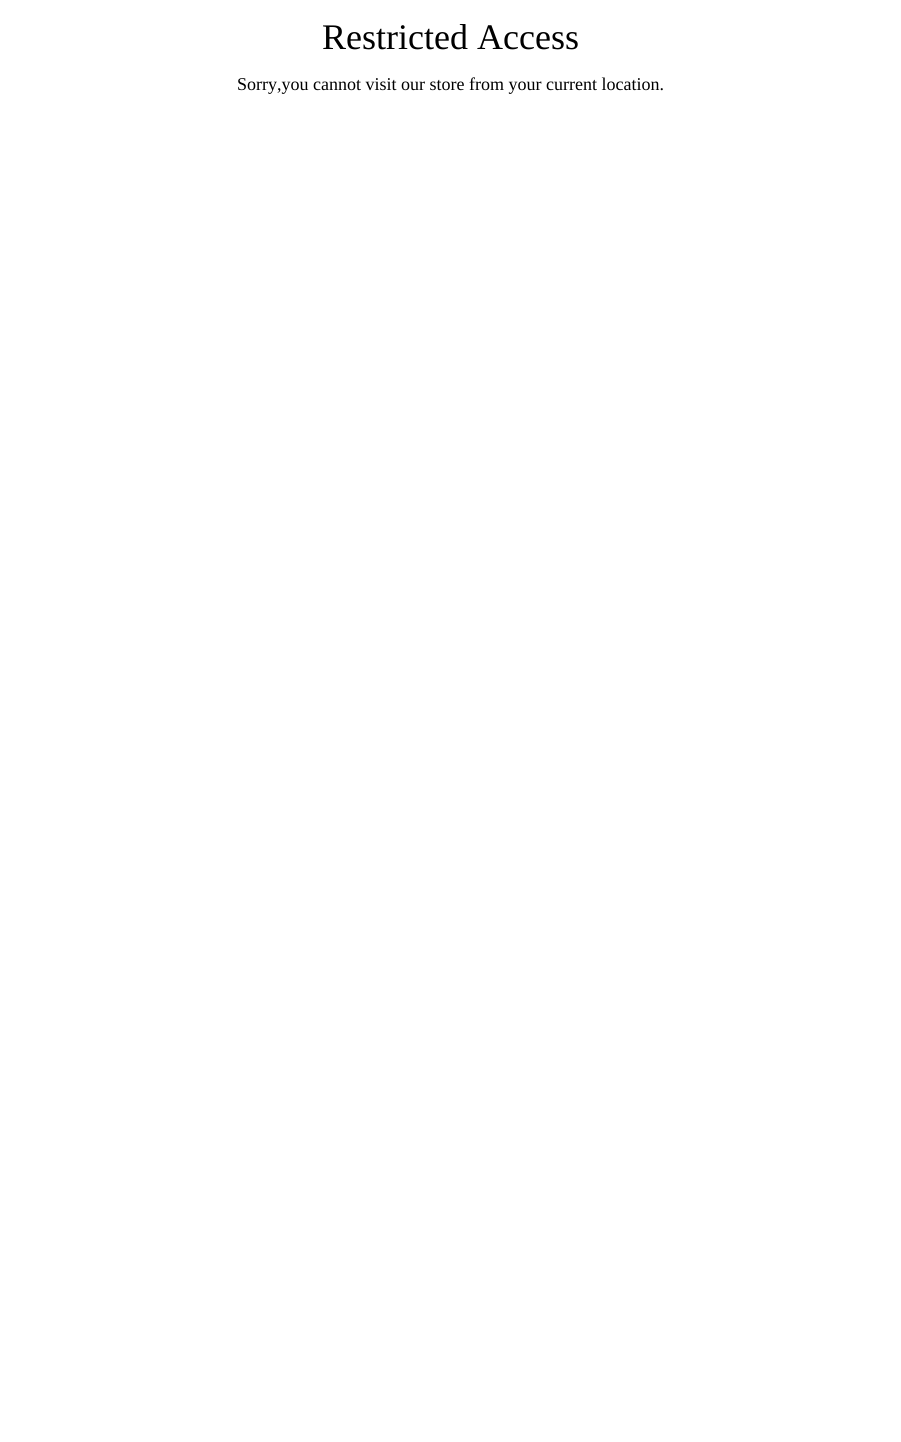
import math
import cairocffi as cairo

surface = cairo.ImageSurface(cairo.FORMAT_RGB24, 901, 1442)
cr = cairo.Context(surface)
options = cairo.FontOptions()
options.set_hint_metrics(cairo.HINT_METRICS_OFF)
options.set_hint_style(cairo.HINT_STYLE_NONE)
cr.set_font_options(options)
cr.set_miter_limit(4)


def use_color(code):
    cr.set_source_rgb(*(v / 255 for v in bytes.fromhex(code[-6:])))


use_color("#ffffff")
cr.paint()
cr.select_font_face("Liberation Serif")
cr.set_font_size(36)
use_color("#000000")
cr.move_to(322, 49)
cr.show_text("Restricted Access")
cr.set_font_size(18)
cr.move_to(237, 90)
cr.show_text("Sorry,you cannot visit our store from your current location.")
surface.write_to_png("result.png")
